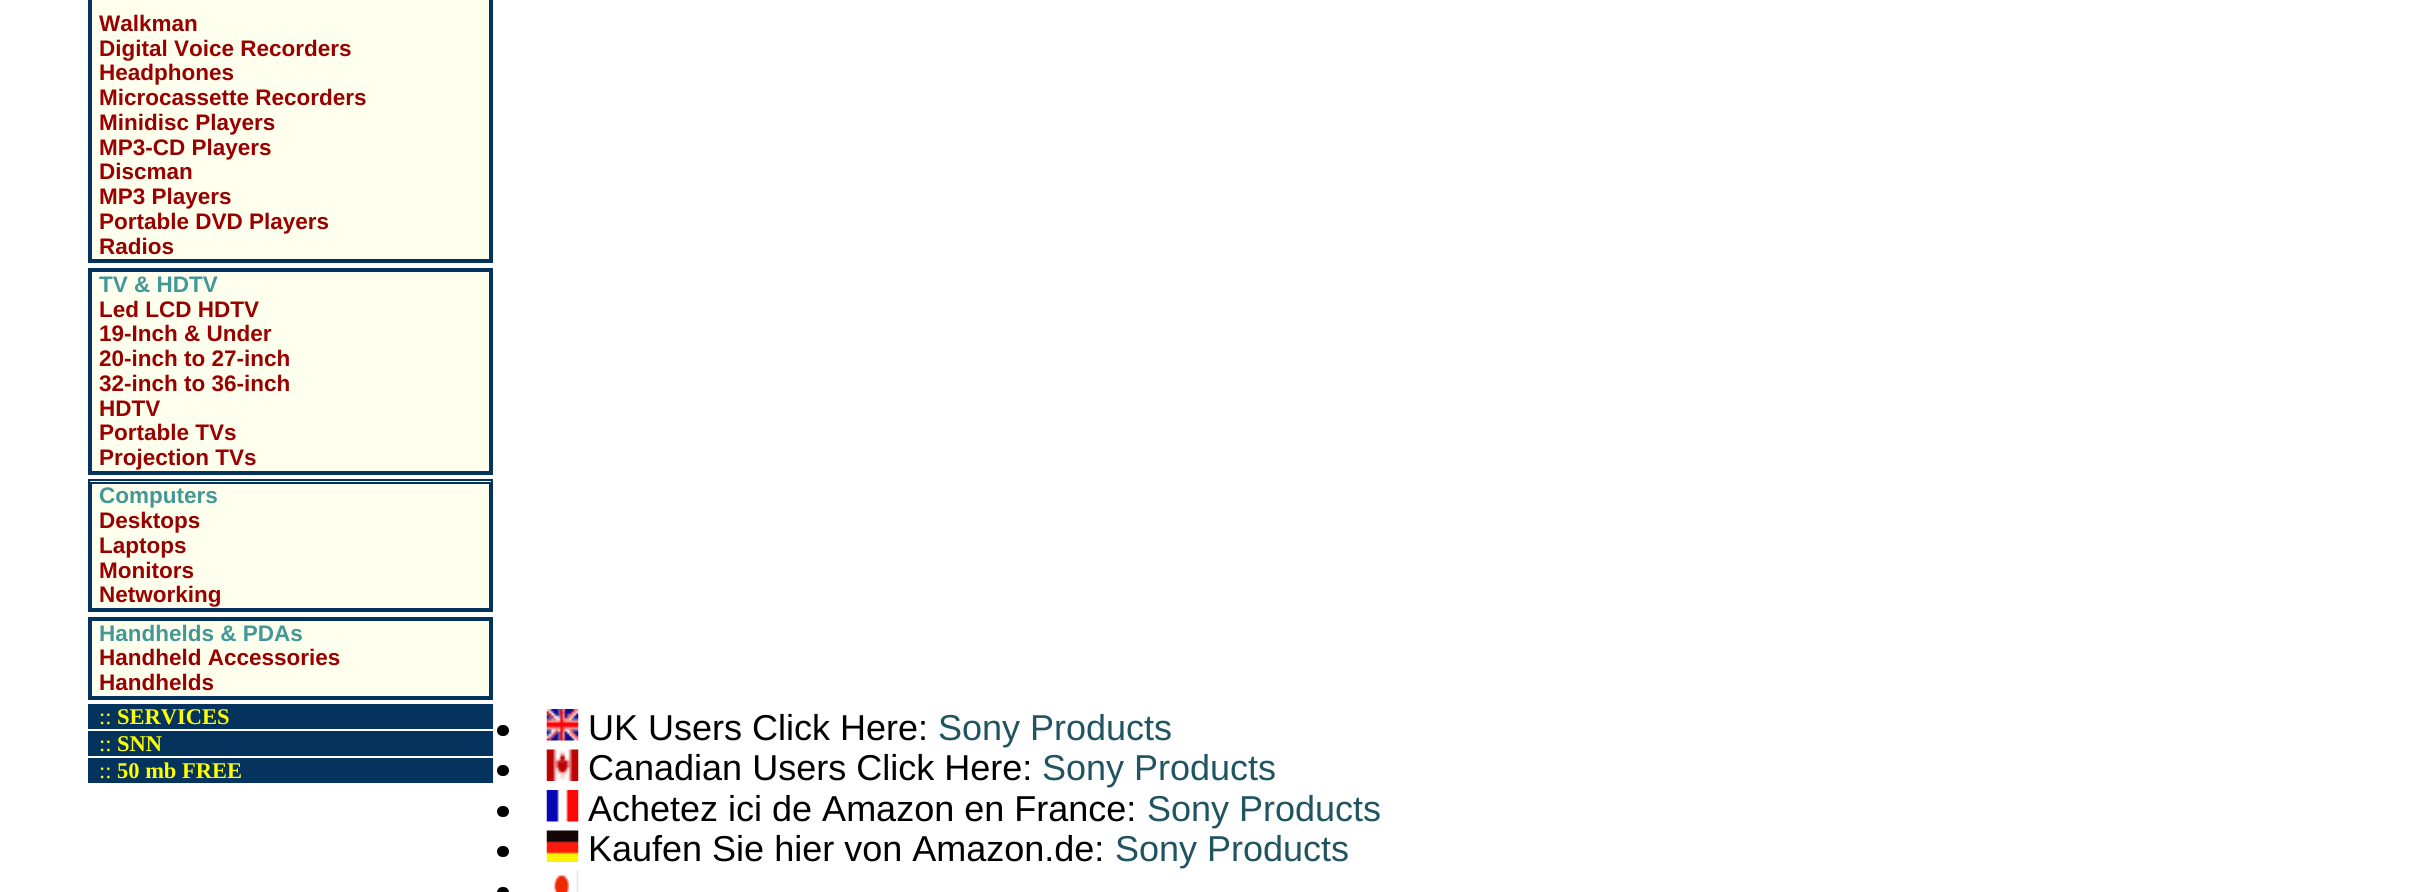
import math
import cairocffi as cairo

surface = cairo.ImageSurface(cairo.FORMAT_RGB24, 2419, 892)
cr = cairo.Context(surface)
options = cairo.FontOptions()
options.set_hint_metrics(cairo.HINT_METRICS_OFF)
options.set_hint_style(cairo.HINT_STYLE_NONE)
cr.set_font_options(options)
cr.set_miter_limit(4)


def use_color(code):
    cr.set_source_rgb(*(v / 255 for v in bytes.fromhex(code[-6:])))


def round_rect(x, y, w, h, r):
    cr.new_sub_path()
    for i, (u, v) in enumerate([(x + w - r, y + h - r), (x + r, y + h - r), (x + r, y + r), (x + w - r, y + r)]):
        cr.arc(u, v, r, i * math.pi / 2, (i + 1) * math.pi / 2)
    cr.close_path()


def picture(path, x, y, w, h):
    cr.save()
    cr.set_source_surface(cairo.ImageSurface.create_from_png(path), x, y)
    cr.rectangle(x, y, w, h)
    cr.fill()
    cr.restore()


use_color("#ffffff")
cr.paint()
cr.rectangle(89, -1, 403, 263)
use_color("#04345d")
cr.stroke()
use_color("#ffffee")
cr.rectangle(91, -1, 399, 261)
cr.fill_preserve()
use_color("#04345d")
cr.stroke()
cr.select_font_face("Liberation Sans", cairo.FONT_SLANT_NORMAL, cairo.FONT_WEIGHT_BOLD)
cr.set_font_size(22.5)
use_color("#990000")
cr.move_to(99, 31)
cr.show_text("Walkman")
cr.move_to(99, 56)
cr.show_text("Digital Voice Recorders")
cr.move_to(99, 80)
cr.show_text("Headphones")
cr.move_to(99, 105)
cr.show_text("Microcassette Recorders")
cr.move_to(99, 130)
cr.show_text("Minidisc Players")
cr.move_to(99, 155)
cr.show_text("MP3-CD Players")
cr.move_to(99, 179)
cr.show_text("Discman")
cr.move_to(99, 204)
cr.show_text("MP3 Players")
cr.move_to(99, 229)
cr.show_text("Portable DVD Players")
cr.move_to(99, 254)
cr.show_text("Radios")
cr.rectangle(89, 269, 403, 205)
use_color("#04345d")
cr.stroke()
use_color("#ffffee")
cr.rectangle(91, 271, 399, 201)
cr.fill_preserve()
use_color("#04345d")
cr.stroke()
use_color("#429897")
cr.move_to(99, 292)
cr.show_text("TV & HDTV")
use_color("#990000")
cr.move_to(99, 317)
cr.show_text("Led LCD HDTV")
cr.move_to(99, 341)
cr.show_text("19-Inch & Under")
cr.move_to(99, 366)
cr.show_text("20-inch to 27-inch")
cr.move_to(99, 391)
cr.show_text("32-inch to 36-inch")
cr.move_to(99, 416)
cr.show_text("HDTV")
cr.move_to(99, 440)
cr.show_text("Portable TVs")
cr.move_to(99, 465)
cr.show_text("Projection TVs")
cr.rectangle(89, 480, 403, 131)
use_color("#04345d")
cr.stroke()
use_color("#ffffee")
cr.rectangle(91, 483, 399, 126)
cr.fill_preserve()
use_color("#04345d")
cr.stroke()
use_color("#429897")
cr.move_to(99, 503)
cr.show_text("Computers")
use_color("#990000")
cr.move_to(99, 528)
cr.show_text("Desktops")
cr.move_to(99, 553)
cr.show_text("Laptops")
cr.move_to(99, 578)
cr.show_text("Monitors")
cr.move_to(99, 602)
cr.show_text("Networking")
cr.rectangle(89, 618, 403, 81)
use_color("#04345d")
cr.stroke()
use_color("#ffffee")
cr.rectangle(91, 620, 399, 77)
cr.fill_preserve()
use_color("#04345d")
cr.stroke()
use_color("#429897")
cr.move_to(99, 641)
cr.show_text("Handhelds & PDAs")
use_color("#990000")
cr.move_to(99, 665)
cr.show_text("Handheld Accessories")
cr.move_to(99, 690)
cr.show_text("Handhelds")
use_color("#04345d")
cr.rectangle(88, 704, 405, 25)
cr.fill()
cr.select_font_face("Liberation Serif")
use_color("#ffff00")
cr.move_to(99, 724)
cr.show_text("::")
cr.select_font_face("Liberation Serif", cairo.FONT_SLANT_NORMAL, cairo.FONT_WEIGHT_BOLD)
cr.move_to(117, 724)
cr.show_text("SERVICES")
use_color("#04345d")
cr.rectangle(88, 731, 405, 25)
cr.fill()
cr.select_font_face("Liberation Serif")
use_color("#ffff00")
cr.move_to(99, 751)
cr.show_text("::")
cr.select_font_face("Liberation Serif", cairo.FONT_SLANT_NORMAL, cairo.FONT_WEIGHT_BOLD)
cr.move_to(117, 751)
cr.show_text("SNN")
use_color("#04345d")
cr.rectangle(88, 758, 405, 25)
cr.fill()
cr.select_font_face("Liberation Serif")
use_color("#ffff00")
cr.move_to(99, 778)
cr.show_text("::")
cr.select_font_face("Liberation Serif", cairo.FONT_SLANT_NORMAL, cairo.FONT_WEIGHT_BOLD)
cr.move_to(117, 778)
cr.show_text("50 mb FREE")
use_color("#000000")
round_rect(497, 725, 12, 11, 5.5)
cr.fill()
picture("img1.png", 546, 709, 33, 32)
cr.select_font_face("Liberation Sans")
cr.set_font_size(36)
cr.move_to(588, 740)
cr.show_text("UK Users Click Here:")
use_color("#205460")
cr.move_to(938, 740)
cr.show_text("Sony Products")
use_color("#000000")
round_rect(497, 765, 12, 11, 5.5)
cr.fill()
picture("img2.png", 546, 749, 33, 32)
cr.move_to(588, 780)
cr.show_text("Canadian Users Click Here:")
use_color("#205460")
cr.move_to(1042, 780)
cr.show_text("Sony Products")
use_color("#000000")
round_rect(497, 806, 12, 11, 5.5)
cr.fill()
picture("img3.png", 546, 790, 33, 32)
cr.move_to(588, 821)
cr.show_text("Achetez ici de Amazon en France:")
use_color("#205460")
cr.move_to(1147, 821)
cr.show_text("Sony Products")
use_color("#000000")
round_rect(497, 846, 12, 11, 5.5)
cr.fill()
picture("img4.png", 546, 830, 33, 32)
cr.move_to(588, 861)
cr.show_text("Kaufen Sie hier von Amazon.de:")
use_color("#205460")
cr.move_to(1115, 861)
cr.show_text("Sony Products")
use_color("#000000")
round_rect(497, 887, 12, 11, 5.5)
cr.fill()
picture("img5.png", 554, 871, 25, 21)
surface.write_to_png("result.png")
